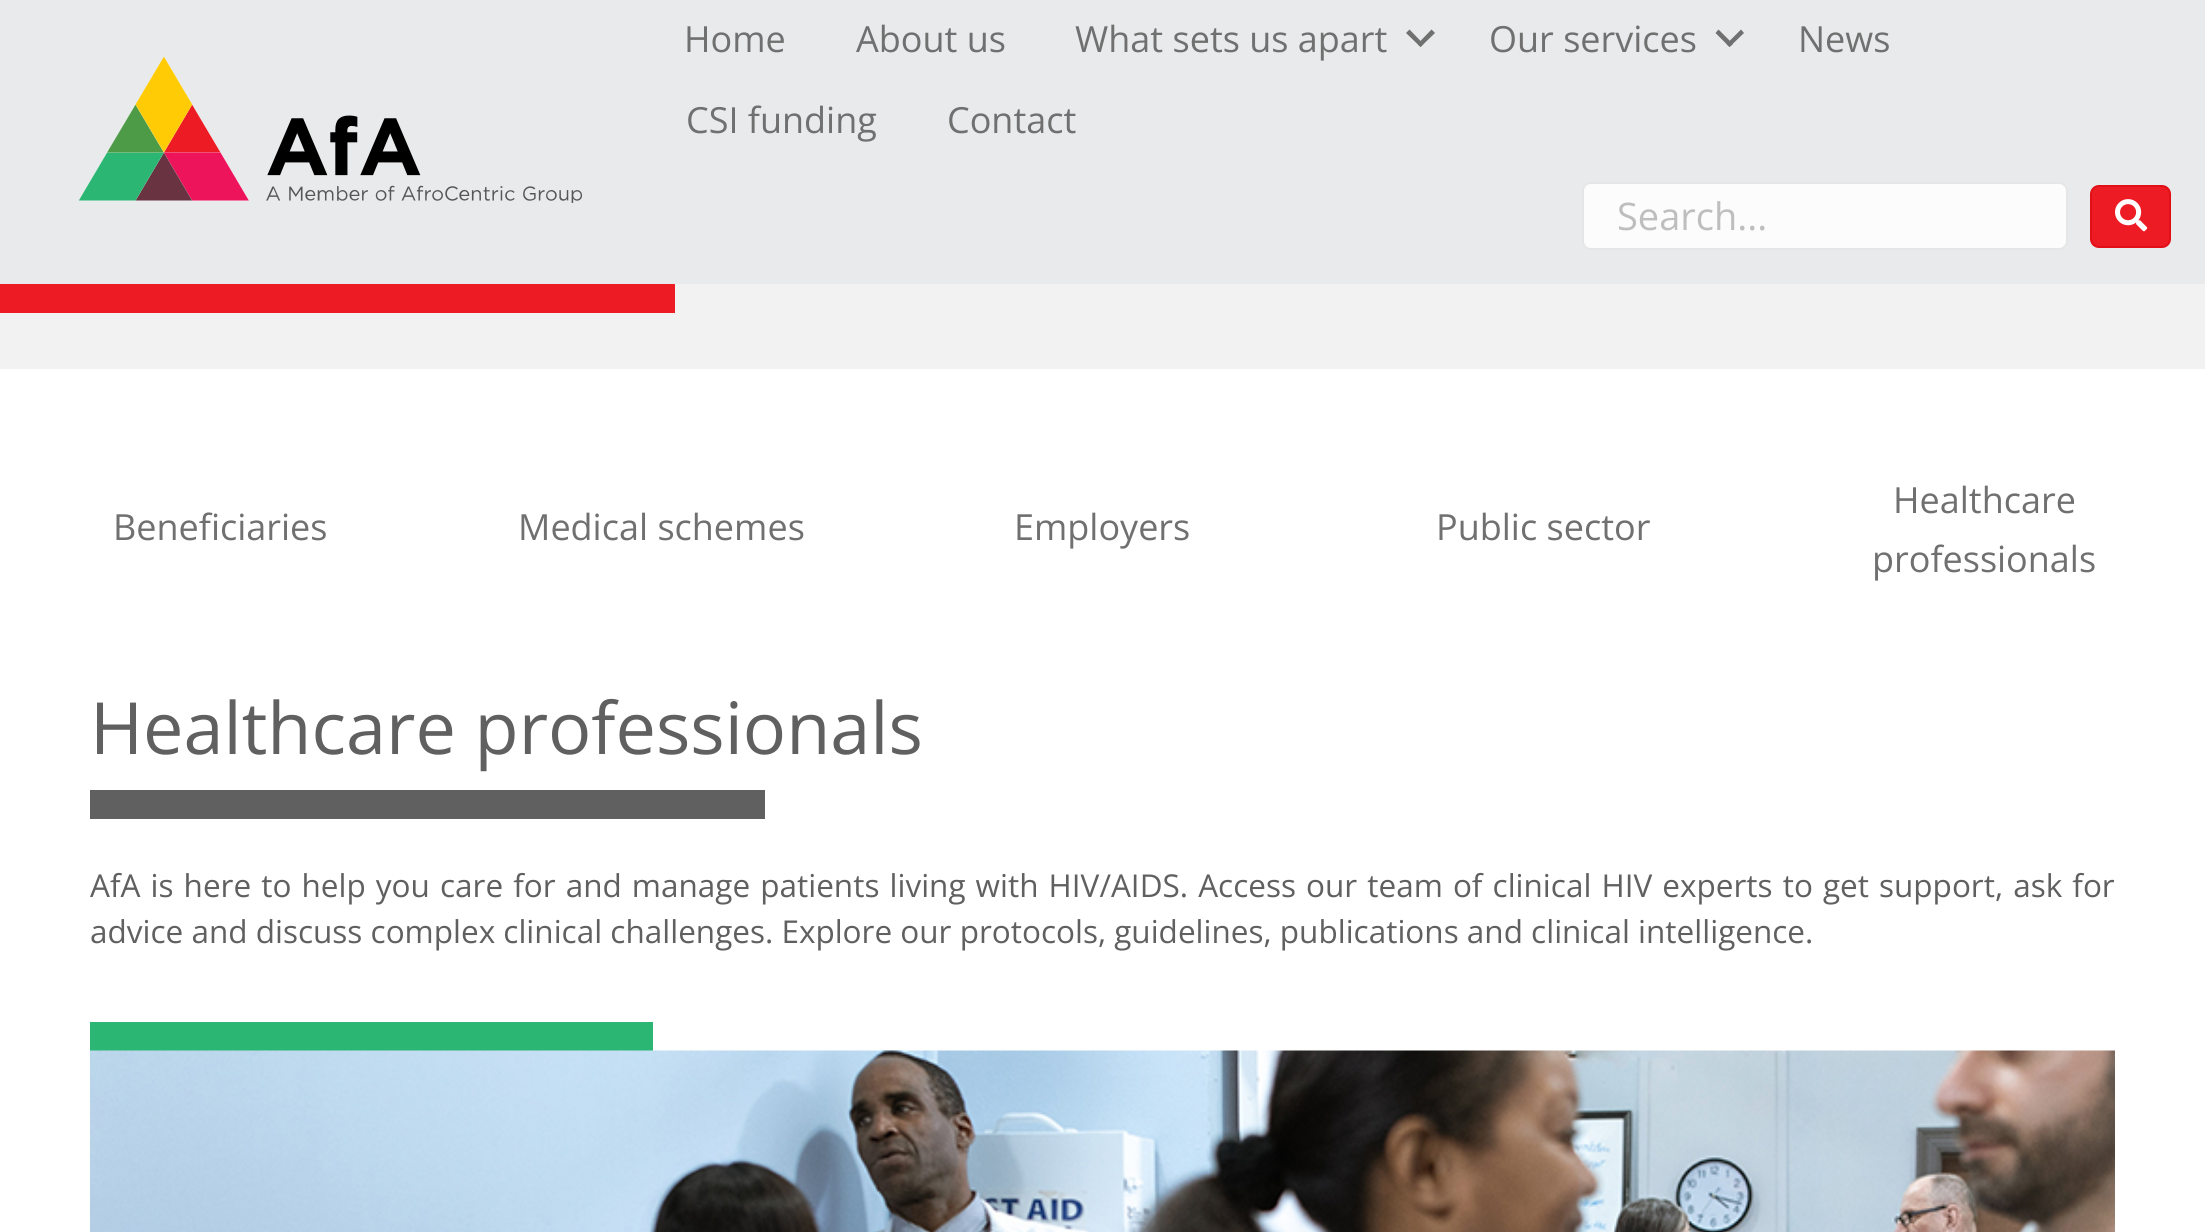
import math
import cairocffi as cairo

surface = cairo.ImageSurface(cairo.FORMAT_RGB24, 2205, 1232)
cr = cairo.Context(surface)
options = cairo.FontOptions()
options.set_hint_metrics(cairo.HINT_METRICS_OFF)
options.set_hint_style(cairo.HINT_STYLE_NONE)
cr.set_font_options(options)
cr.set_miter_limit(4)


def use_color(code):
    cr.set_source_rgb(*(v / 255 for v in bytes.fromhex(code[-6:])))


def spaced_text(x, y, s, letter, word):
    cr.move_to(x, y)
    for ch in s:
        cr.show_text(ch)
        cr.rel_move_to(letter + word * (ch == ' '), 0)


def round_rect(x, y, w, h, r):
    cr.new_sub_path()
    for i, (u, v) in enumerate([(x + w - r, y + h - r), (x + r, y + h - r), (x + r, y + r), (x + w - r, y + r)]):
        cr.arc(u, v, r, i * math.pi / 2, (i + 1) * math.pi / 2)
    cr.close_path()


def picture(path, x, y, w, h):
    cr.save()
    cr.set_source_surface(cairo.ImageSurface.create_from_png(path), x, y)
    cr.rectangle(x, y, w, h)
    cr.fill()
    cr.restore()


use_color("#f2f2f2")
cr.paint()
use_color("#e9eaeb")
cr.rectangle(0, 0, 2205, 284)
cr.fill()
picture("img1.png", 79, 56, 503, 147)
cr.select_font_face("Open Sans")
cr.set_font_size(36)
use_color("#707070")
cr.move_to(684, 52)
cr.show_text("Home")
cr.move_to(856, 52)
cr.show_text("About us")
cr.move_to(1075, 52)
cr.show_text("What sets us apart")
cr.new_path()
cr.move_to(1431.5, 29.5)
cr.line_to(1435, 33)
cr.line_to(1420.5, 47)
cr.line_to(1417.5, 44)
cr.close_path()
cr.fill()
cr.new_path()
cr.move_to(1409.5, 29.5)
cr.line_to(1423.5, 44)
cr.line_to(1420.5, 47)
cr.line_to(1406, 33)
cr.close_path()
cr.fill()
cr.move_to(1489, 52)
cr.show_text("Our services")
cr.new_path()
cr.move_to(1741, 29.5)
cr.line_to(1744, 33)
cr.line_to(1729.5, 47)
cr.line_to(1726.5, 44)
cr.close_path()
cr.fill()
cr.new_path()
cr.move_to(1718.5, 29.5)
cr.line_to(1733, 44)
cr.line_to(1729.5, 47)
cr.line_to(1715.5, 33)
cr.close_path()
cr.fill()
cr.move_to(1798, 52)
cr.show_text("News")
cr.move_to(686, 133)
cr.show_text("CSI funding")
cr.move_to(947, 133)
cr.show_text("Contact")
use_color("#fcfcfc")
round_rect(1583, 183, 484, 66, 8)
cr.fill_preserve()
use_color("#e6e6e6")
cr.stroke()
cr.set_font_size(38)
use_color("#bebebe")
cr.move_to(1617, 230)
cr.show_text("Search...")
use_color("#ed1c24")
round_rect(2091, 186, 79, 61, 8)
cr.fill_preserve()
use_color("#e11018")
cr.stroke()
picture("img2.png", 2115, 199, 33, 33)
use_color("#ed1c24")
cr.rectangle(0, 284, 675, 29)
cr.fill()
use_color("#ffffff")
cr.rectangle(0, 369, 2205, 863)
cr.fill()
cr.set_font_size(36)
use_color("#707070")
cr.move_to(113, 540)
cr.show_text("Beneficiaries")
cr.move_to(518, 540)
cr.show_text("Medical schemes")
cr.move_to(1014, 540)
cr.show_text("Employers")
cr.move_to(1436, 540)
cr.show_text("Public sector")
cr.move_to(1893, 513)
cr.show_text("Healthcare")
cr.move_to(1872, 572)
cr.show_text("professionals")
cr.set_font_size(72)
use_color("#606060")
cr.move_to(90, 754)
cr.show_text("Healthcare professionals")
cr.rectangle(90, 790, 675, 29)
cr.fill()
cr.set_font_size(31.5)
spaced_text(90, 897, "AfA is here to help you care for and manage patients living with HIV/AIDS. Access our team of clinical HIV experts to get support, ask for", 0, 1.9)
cr.move_to(90, 943)
cr.show_text("advice and discuss complex clinical challenges. Explore our protocols, guidelines, publications and clinical intelligence.")
use_color("#2bb673")
cr.rectangle(90, 1022, 563, 29)
cr.fill()
picture("img3.png", 90, 1050, 2025, 182)
surface.write_to_png("result.png")
